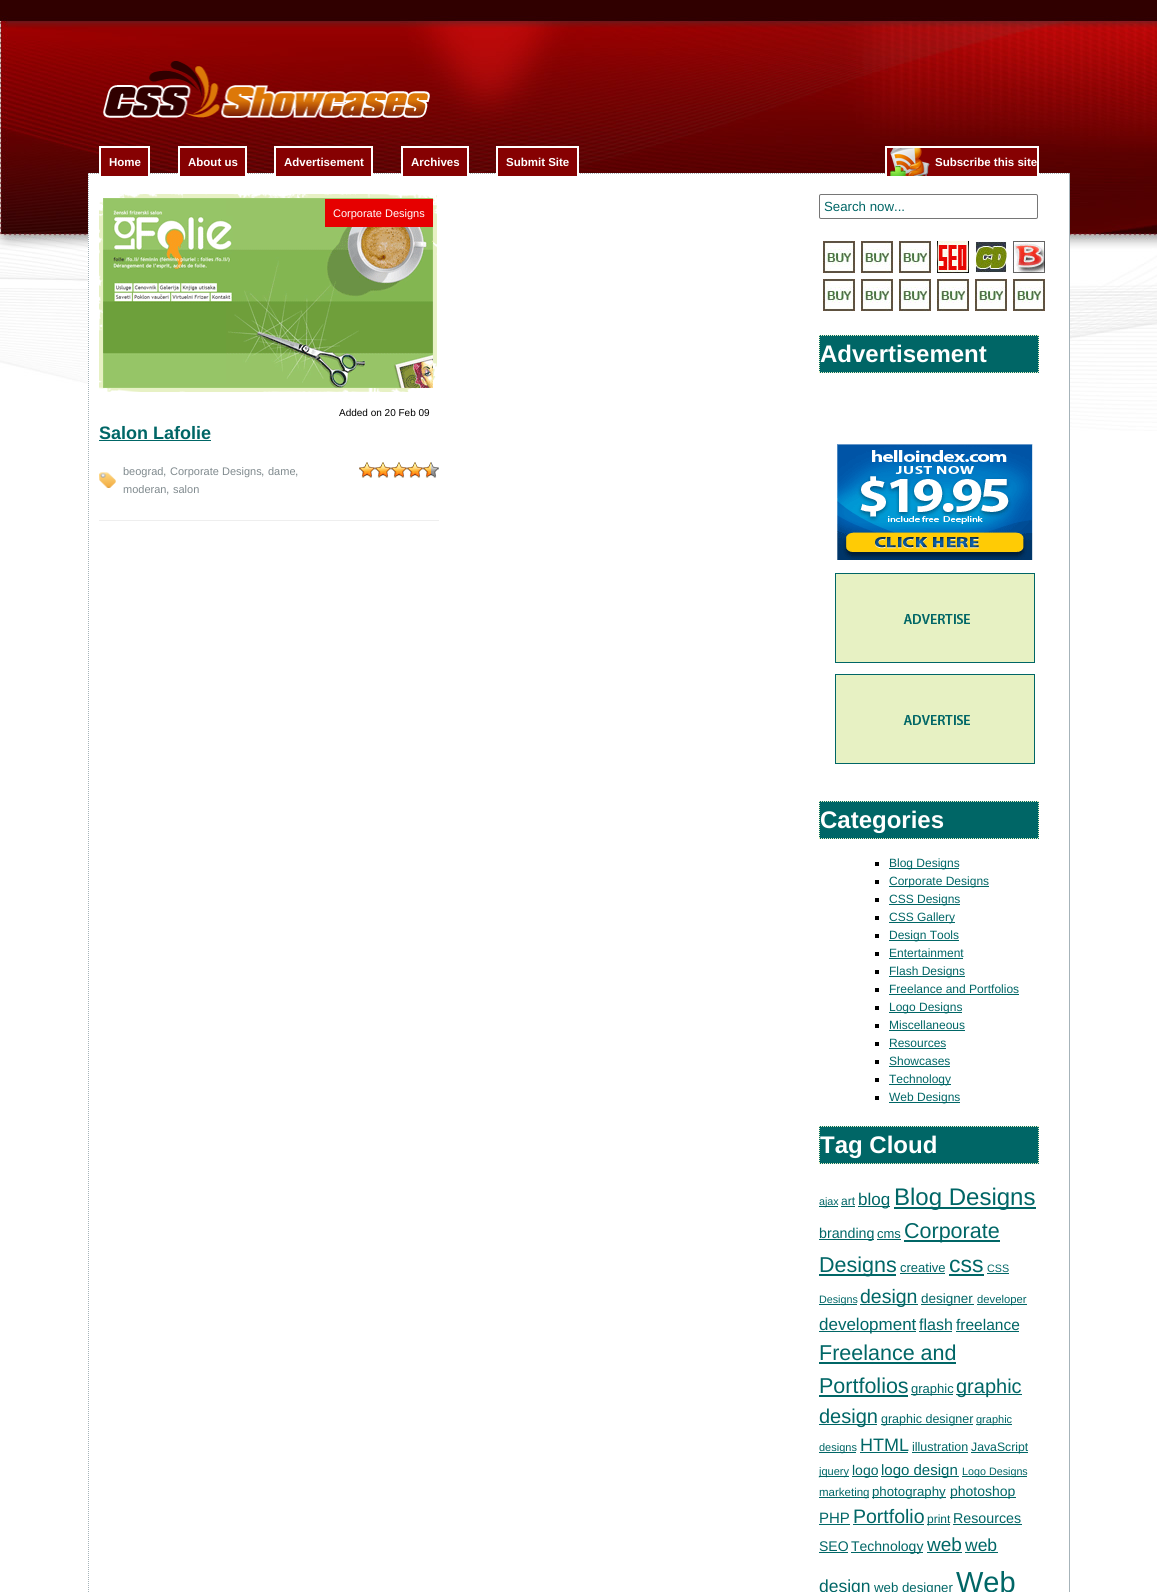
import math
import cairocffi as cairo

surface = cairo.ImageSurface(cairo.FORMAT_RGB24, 1157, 1592)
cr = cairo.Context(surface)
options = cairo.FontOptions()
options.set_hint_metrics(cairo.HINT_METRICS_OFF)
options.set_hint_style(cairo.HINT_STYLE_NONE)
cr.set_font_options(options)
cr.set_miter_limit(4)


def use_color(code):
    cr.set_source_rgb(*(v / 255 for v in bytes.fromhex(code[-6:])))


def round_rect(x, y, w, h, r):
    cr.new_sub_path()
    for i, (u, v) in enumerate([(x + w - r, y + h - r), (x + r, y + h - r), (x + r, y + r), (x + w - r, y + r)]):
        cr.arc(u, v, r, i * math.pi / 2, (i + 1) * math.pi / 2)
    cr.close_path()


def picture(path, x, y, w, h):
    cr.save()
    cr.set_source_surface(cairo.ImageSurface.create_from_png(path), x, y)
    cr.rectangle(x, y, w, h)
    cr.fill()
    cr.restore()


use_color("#ffffff")
cr.paint()
picture("img1.png", 0, 0, 1157, 431)
picture("img2.png", 103, 61, 327, 57)
use_color("#ffffff")
cr.rectangle(88, 173, 981, 258)
cr.fill()
cr.new_path()
cr.move_to(88, 173.5)
cr.line_to(1070, 173.5)
use_color("#a6b3b9")
cr.set_line_width(1)
cr.set_dash([1, 1])
cr.stroke()
use_color("#860102")
cr.rectangle(100, 147, 49, 30)
cr.fill_preserve()
use_color("#ffffff")
cr.set_line_width(2)
cr.set_dash([])
cr.stroke()
cr.select_font_face("Liberation Sans", cairo.FONT_SLANT_NORMAL, cairo.FONT_WEIGHT_BOLD)
cr.set_font_size(11.5)
cr.move_to(109, 166)
cr.show_text("Home")
use_color("#860102")
cr.rectangle(179, 147, 67, 30)
cr.fill_preserve()
use_color("#ffffff")
cr.stroke()
cr.move_to(188, 166)
cr.show_text("About us")
use_color("#860102")
cr.rectangle(275, 147, 97, 30)
cr.fill_preserve()
use_color("#ffffff")
cr.stroke()
cr.move_to(284, 166)
cr.show_text("Advertisement")
use_color("#860102")
cr.rectangle(402, 147, 66, 30)
cr.fill_preserve()
use_color("#ffffff")
cr.stroke()
cr.move_to(411, 166)
cr.show_text("Archives")
use_color("#860102")
cr.rectangle(497, 147, 81, 30)
cr.fill_preserve()
use_color("#ffffff")
cr.stroke()
cr.move_to(506, 166)
cr.show_text("Submit Site")
use_color("#860102")
cr.rectangle(887, 148, 150, 28)
cr.fill()
picture("img3.png", 890, 148, 40, 28)
cr.rectangle(886, 147, 152, 30)
use_color("#ffffff")
cr.stroke()
cr.move_to(935, 166)
cr.show_text("Subscribe this site")
use_color("#a6b3b9")
cr.rectangle(1069, 173, 1, 1419)
cr.fill()
cr.new_path()
cr.move_to(88.5, 173)
cr.line_to(88.5, 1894)
cr.set_line_width(1)
cr.set_dash([1, 1])
cr.stroke()
picture("img4.png", 99, 194, 338, 198)
picture("img5.png", 103, 198, 330, 190)
use_color("#e60000")
cr.rectangle(325, 199, 108, 28)
cr.fill()
cr.select_font_face("Liberation Sans")
cr.set_font_size(11)
use_color("#ffffff")
cr.move_to(333, 217)
cr.show_text("Corporate Designs")
cr.set_font_size(10)
use_color("#000000")
cr.move_to(339, 416)
cr.show_text("Added on 20 Feb 09")
cr.select_font_face("Liberation Sans", cairo.FONT_SLANT_NORMAL, cairo.FONT_WEIGHT_BOLD)
cr.set_font_size(18)
use_color("#006666")
cr.move_to(99, 439)
cr.show_text("Salon Lafolie")
cr.rectangle(99, 440, 112, 1)
cr.fill()
picture("img6.png", 99, 472, 17, 16)
cr.select_font_face("Liberation Sans")
cr.set_font_size(11)
use_color("#808a8e")
cr.move_to(123, 475)
cr.show_text("beograd")
cr.set_font_size(12)
cr.move_to(163, 475)
cr.show_text(",")
cr.set_font_size(11)
cr.move_to(170, 475)
cr.show_text("Corporate Designs")
cr.set_font_size(12)
cr.move_to(261, 475)
cr.show_text(",")
cr.set_font_size(11)
cr.move_to(268, 475)
cr.show_text("dame")
cr.set_font_size(12)
cr.move_to(295, 475)
cr.show_text(",")
cr.set_font_size(11)
cr.move_to(123, 493)
cr.show_text("moderan")
cr.set_font_size(12)
cr.move_to(166, 493)
cr.show_text(",")
cr.set_font_size(11)
cr.move_to(173, 493)
cr.show_text("salon")
picture("img7.png", 359, 462, 16, 16)
picture("img7.png", 375, 462, 16, 16)
picture("img7.png", 391, 462, 16, 16)
picture("img7.png", 407, 462, 16, 16)
picture("img8.png", 423, 462, 16, 16)
use_color("#eeeeee")
cr.rectangle(99, 520, 340, 1)
cr.fill()
round_rect(819.5, 194.5, 218, 24, 1.5)
use_color("#767676")
cr.set_dash([])
cr.stroke()
cr.set_font_size(13.25)
use_color("#006666")
cr.move_to(824, 211)
cr.show_text("Search now...")
picture("img9.png", 823, 241, 32, 32)
picture("img9.png", 861, 241, 32, 32)
picture("img9.png", 899, 241, 32, 32)
picture("img10.png", 937, 241, 32, 32)
picture("img11.png", 975, 241, 32, 32)
picture("img12.png", 1013, 241, 32, 32)
picture("img9.png", 823, 279, 32, 32)
picture("img9.png", 861, 279, 32, 32)
picture("img9.png", 899, 279, 32, 32)
picture("img9.png", 937, 279, 32, 32)
picture("img9.png", 975, 279, 32, 32)
picture("img9.png", 1013, 279, 32, 32)
cr.rectangle(819, 335, 220, 38)
cr.fill()
cr.new_path()
cr.move_to(819, 335.5)
cr.line_to(1039, 335.5)
use_color("#e7f1c3")
cr.set_dash([1, 1])
cr.stroke()
cr.new_path()
cr.move_to(1038.5, 335)
cr.line_to(1038.5, 373)
cr.stroke()
cr.new_path()
cr.move_to(819, 372.5)
cr.line_to(1039, 372.5)
cr.stroke()
cr.new_path()
cr.move_to(819.5, 335)
cr.line_to(819.5, 373)
cr.stroke()
cr.select_font_face("Liberation Sans", cairo.FONT_SLANT_NORMAL, cairo.FONT_WEIGHT_BOLD)
cr.set_font_size(24)
use_color("#ffffff")
cr.move_to(820, 362)
cr.show_text("Advertisement")
picture("img13.png", 837, 444, 196, 116)
picture("img14.png", 835, 573, 200, 90)
picture("img14.png", 835, 674, 200, 90)
use_color("#006666")
cr.rectangle(819, 801, 220, 38)
cr.fill()
cr.new_path()
cr.move_to(819, 801.5)
cr.line_to(1039, 801.5)
use_color("#e7f1c3")
cr.stroke()
cr.new_path()
cr.move_to(1038.5, 801)
cr.line_to(1038.5, 839)
cr.stroke()
cr.new_path()
cr.move_to(819, 838.5)
cr.line_to(1039, 838.5)
cr.stroke()
cr.new_path()
cr.move_to(819.5, 801)
cr.line_to(819.5, 839)
cr.stroke()
use_color("#ffffff")
cr.move_to(820, 828)
cr.show_text("Categories")
use_color("#000000")
cr.rectangle(875, 862, 4, 4)
cr.fill()
use_color("#006666")
cr.rectangle(889, 868, 70, 1)
cr.fill()
cr.select_font_face("Liberation Sans")
cr.set_font_size(12)
cr.move_to(889, 867)
cr.show_text("Blog Designs")
use_color("#000000")
cr.rectangle(875, 880, 4, 4)
cr.fill()
use_color("#006666")
cr.rectangle(889, 886, 100, 1)
cr.fill()
cr.move_to(889, 885)
cr.show_text("Corporate Designs")
use_color("#000000")
cr.rectangle(875, 898, 4, 4)
cr.fill()
use_color("#006666")
cr.rectangle(889, 904, 71, 1)
cr.fill()
cr.move_to(889, 903)
cr.show_text("CSS Designs")
use_color("#000000")
cr.rectangle(875, 916, 4, 4)
cr.fill()
use_color("#006666")
cr.rectangle(889, 922, 66, 1)
cr.fill()
cr.move_to(889, 921)
cr.show_text("CSS Gallery")
use_color("#000000")
cr.rectangle(875, 934, 4, 4)
cr.fill()
use_color("#006666")
cr.rectangle(889, 940, 70, 1)
cr.fill()
cr.move_to(889, 939)
cr.show_text("Design Tools")
use_color("#000000")
cr.rectangle(875, 952, 4, 4)
cr.fill()
use_color("#006666")
cr.move_to(889, 957)
cr.show_text("Entertainment")
cr.rectangle(889, 958, 74, 1)
cr.fill()
use_color("#000000")
cr.rectangle(875, 970, 4, 4)
cr.fill()
use_color("#006666")
cr.rectangle(889, 976, 76, 1)
cr.fill()
cr.move_to(889, 975)
cr.show_text("Flash Designs")
use_color("#000000")
cr.rectangle(875, 988, 4, 4)
cr.fill()
use_color("#006666")
cr.move_to(889, 993)
cr.show_text("Freelance and Portfolios")
cr.rectangle(889, 994, 130, 1)
cr.fill()
use_color("#000000")
cr.rectangle(875, 1006, 4, 4)
cr.fill()
use_color("#006666")
cr.rectangle(889, 1012, 73, 1)
cr.fill()
cr.move_to(889, 1011)
cr.show_text("Logo Designs")
use_color("#000000")
cr.rectangle(875, 1024, 4, 4)
cr.fill()
use_color("#006666")
cr.move_to(889, 1029)
cr.show_text("Miscellaneous")
cr.rectangle(889, 1030, 76, 1)
cr.fill()
use_color("#000000")
cr.rectangle(875, 1042, 4, 4)
cr.fill()
use_color("#006666")
cr.move_to(889, 1047)
cr.show_text("Resources")
cr.rectangle(889, 1048, 57, 1)
cr.fill()
use_color("#000000")
cr.rectangle(875, 1060, 4, 4)
cr.fill()
use_color("#006666")
cr.move_to(889, 1065)
cr.show_text("Showcases")
cr.rectangle(889, 1066, 61, 1)
cr.fill()
use_color("#000000")
cr.rectangle(875, 1078, 4, 4)
cr.fill()
use_color("#006666")
cr.rectangle(889, 1084, 62, 1)
cr.fill()
cr.move_to(889, 1083)
cr.show_text("Technology")
use_color("#000000")
cr.rectangle(875, 1096, 4, 4)
cr.fill()
use_color("#006666")
cr.rectangle(889, 1102, 71, 1)
cr.fill()
cr.move_to(889, 1101)
cr.show_text("Web Designs")
cr.rectangle(819, 1126, 220, 38)
cr.fill()
cr.new_path()
cr.move_to(819, 1126.5)
cr.line_to(1039, 1126.5)
use_color("#e7f1c3")
cr.stroke()
cr.new_path()
cr.move_to(1038.5, 1126)
cr.line_to(1038.5, 1164)
cr.stroke()
cr.new_path()
cr.move_to(819, 1163.5)
cr.line_to(1039, 1163.5)
cr.stroke()
cr.new_path()
cr.move_to(819.5, 1126)
cr.line_to(819.5, 1164)
cr.stroke()
cr.select_font_face("Liberation Sans", cairo.FONT_SLANT_NORMAL, cairo.FONT_WEIGHT_BOLD)
cr.set_font_size(24)
use_color("#ffffff")
cr.move_to(820, 1153)
cr.show_text("Tag Cloud")
use_color("#006666")
cr.rectangle(819, 1206, 19, 1)
cr.fill()
cr.select_font_face("Liberation Sans")
cr.set_font_size(10.75)
cr.move_to(819, 1205)
cr.show_text("ajax")
cr.set_font_size(12)
cr.move_to(841, 1205)
cr.show_text("art")
cr.rectangle(841, 1206, 14, 1)
cr.fill()
cr.rectangle(858, 1206, 32, 1)
cr.fill()
cr.set_font_size(17)
cr.move_to(858, 1205)
cr.show_text("blog")
cr.rectangle(894, 1207, 142, 2)
cr.fill()
cr.set_font_size(24)
cr.move_to(894, 1205)
cr.show_text("Blog Designs")
cr.rectangle(819, 1239, 55, 1)
cr.fill()
cr.set_font_size(14.25)
cr.move_to(819, 1238)
cr.show_text("branding")
cr.set_font_size(13)
cr.move_to(877, 1238)
cr.show_text("cms")
cr.rectangle(877, 1239, 24, 1)
cr.fill()
cr.rectangle(904, 1240, 96, 2)
cr.fill()
cr.set_font_size(21.5)
cr.move_to(904, 1238)
cr.show_text("Corporate")
cr.rectangle(819, 1274, 77, 2)
cr.fill()
cr.move_to(819, 1272)
cr.show_text("Designs")
cr.set_font_size(13)
cr.move_to(900, 1272)
cr.show_text("creative")
cr.rectangle(900, 1273, 45, 1)
cr.fill()
cr.set_font_size(23)
cr.move_to(949, 1272)
cr.show_text("css")
cr.rectangle(949, 1274, 35, 2)
cr.fill()
cr.set_font_size(10.75)
cr.move_to(987, 1272)
cr.show_text("CSS")
cr.rectangle(987, 1273, 22, 1)
cr.fill()
cr.rectangle(819, 1304, 38, 1)
cr.fill()
cr.move_to(819, 1303)
cr.show_text("Designs")
cr.rectangle(860, 1304, 58, 1)
cr.fill()
cr.set_font_size(19.5)
cr.move_to(860, 1303)
cr.show_text("design")
cr.rectangle(921, 1304, 53, 1)
cr.fill()
cr.set_font_size(13.5)
cr.move_to(921, 1303)
cr.show_text("designer")
cr.rectangle(977, 1304, 50, 1)
cr.fill()
cr.set_font_size(11.25)
cr.move_to(977, 1303)
cr.show_text("developer")
cr.rectangle(819, 1331, 97, 1)
cr.fill()
cr.set_font_size(17)
cr.move_to(819, 1330)
cr.show_text("development")
cr.set_font_size(16)
cr.move_to(919, 1330)
cr.show_text("flash")
cr.rectangle(919, 1331, 33, 1)
cr.fill()
cr.set_font_size(15.5)
cr.move_to(956, 1330)
cr.show_text("freelance")
cr.rectangle(956, 1331, 63, 1)
cr.fill()
cr.set_font_size(21.5)
cr.move_to(819, 1360)
cr.show_text("Freelance and")
cr.rectangle(819, 1362, 137, 2)
cr.fill()
cr.move_to(819, 1393)
cr.show_text("Portfolios")
cr.rectangle(819, 1395, 89, 2)
cr.fill()
cr.rectangle(911, 1394, 42, 1)
cr.fill()
cr.set_font_size(13)
cr.move_to(911, 1393)
cr.show_text("graphic")
cr.rectangle(956, 1394, 66, 1)
cr.fill()
cr.set_font_size(20)
cr.move_to(956, 1393)
cr.show_text("graphic")
cr.rectangle(819, 1424, 58, 1)
cr.fill()
cr.move_to(819, 1423)
cr.show_text("design")
cr.rectangle(881, 1424, 92, 1)
cr.fill()
cr.set_font_size(12.5)
cr.move_to(881, 1423)
cr.show_text("graphic designer")
cr.rectangle(976, 1424, 36, 1)
cr.fill()
cr.set_font_size(11)
cr.move_to(976, 1423)
cr.show_text("graphic")
cr.rectangle(819, 1452, 37, 1)
cr.fill()
cr.move_to(819, 1451)
cr.show_text("designs")
cr.set_font_size(18)
cr.move_to(860, 1451)
cr.show_text("HTML")
cr.rectangle(860, 1452, 48, 1)
cr.fill()
cr.set_font_size(12.5)
cr.move_to(912, 1451)
cr.show_text("illustration")
cr.rectangle(912, 1452, 56, 1)
cr.fill()
cr.rectangle(971, 1452, 57, 1)
cr.fill()
cr.set_font_size(12.25)
cr.move_to(971, 1451)
cr.show_text("JavaScript")
cr.rectangle(819, 1476, 30, 1)
cr.fill()
cr.set_font_size(11)
cr.move_to(819, 1475)
cr.show_text("jquery")
cr.rectangle(852, 1476, 26, 1)
cr.fill()
cr.set_font_size(14)
cr.move_to(852, 1475)
cr.show_text("logo")
cr.rectangle(881, 1476, 78, 1)
cr.fill()
cr.set_font_size(15)
cr.move_to(881, 1475)
cr.show_text("logo design")
cr.rectangle(962, 1476, 65, 1)
cr.fill()
cr.set_font_size(10.75)
cr.move_to(962, 1475)
cr.show_text("Logo Designs")
cr.rectangle(819, 1497, 50, 1)
cr.fill()
cr.set_font_size(11.5)
cr.move_to(819, 1496)
cr.show_text("marketing")
cr.rectangle(872, 1497, 74, 1)
cr.fill()
cr.set_font_size(13.25)
cr.move_to(872, 1496)
cr.show_text("photography")
cr.rectangle(950, 1497, 66, 1)
cr.fill()
cr.set_font_size(14)
cr.move_to(950, 1496)
cr.show_text("photoshop")
cr.set_font_size(15)
cr.move_to(819, 1523)
cr.show_text("PHP")
cr.rectangle(819, 1524, 31, 1)
cr.fill()
cr.set_font_size(19.5)
cr.move_to(853, 1523)
cr.show_text("Portfolio")
cr.rectangle(853, 1524, 71, 1)
cr.fill()
cr.rectangle(927, 1524, 23, 1)
cr.fill()
cr.set_font_size(12)
cr.move_to(927, 1523)
cr.show_text("print")
cr.set_font_size(14.25)
cr.move_to(953, 1523)
cr.show_text("Resources")
cr.rectangle(953, 1524, 69, 1)
cr.fill()
cr.set_font_size(14)
cr.move_to(819, 1551)
cr.show_text("SEO")
cr.rectangle(819, 1552, 29, 1)
cr.fill()
cr.rectangle(851, 1552, 72, 1)
cr.fill()
cr.move_to(851, 1551)
cr.show_text("Technology")
cr.set_font_size(19)
cr.move_to(927, 1551)
cr.show_text("web")
cr.rectangle(927, 1552, 35, 1)
cr.fill()
cr.set_font_size(17.5)
cr.move_to(965, 1551)
cr.show_text("web")
cr.rectangle(965, 1552, 33, 1)
cr.fill()
cr.move_to(819, 1592)
cr.show_text("design")
cr.set_font_size(13.25)
cr.move_to(874, 1592)
cr.show_text("web designer")
cr.set_font_size(29)
cr.move_to(956, 1592)
cr.show_text("Web")
surface.write_to_png("result.png")
